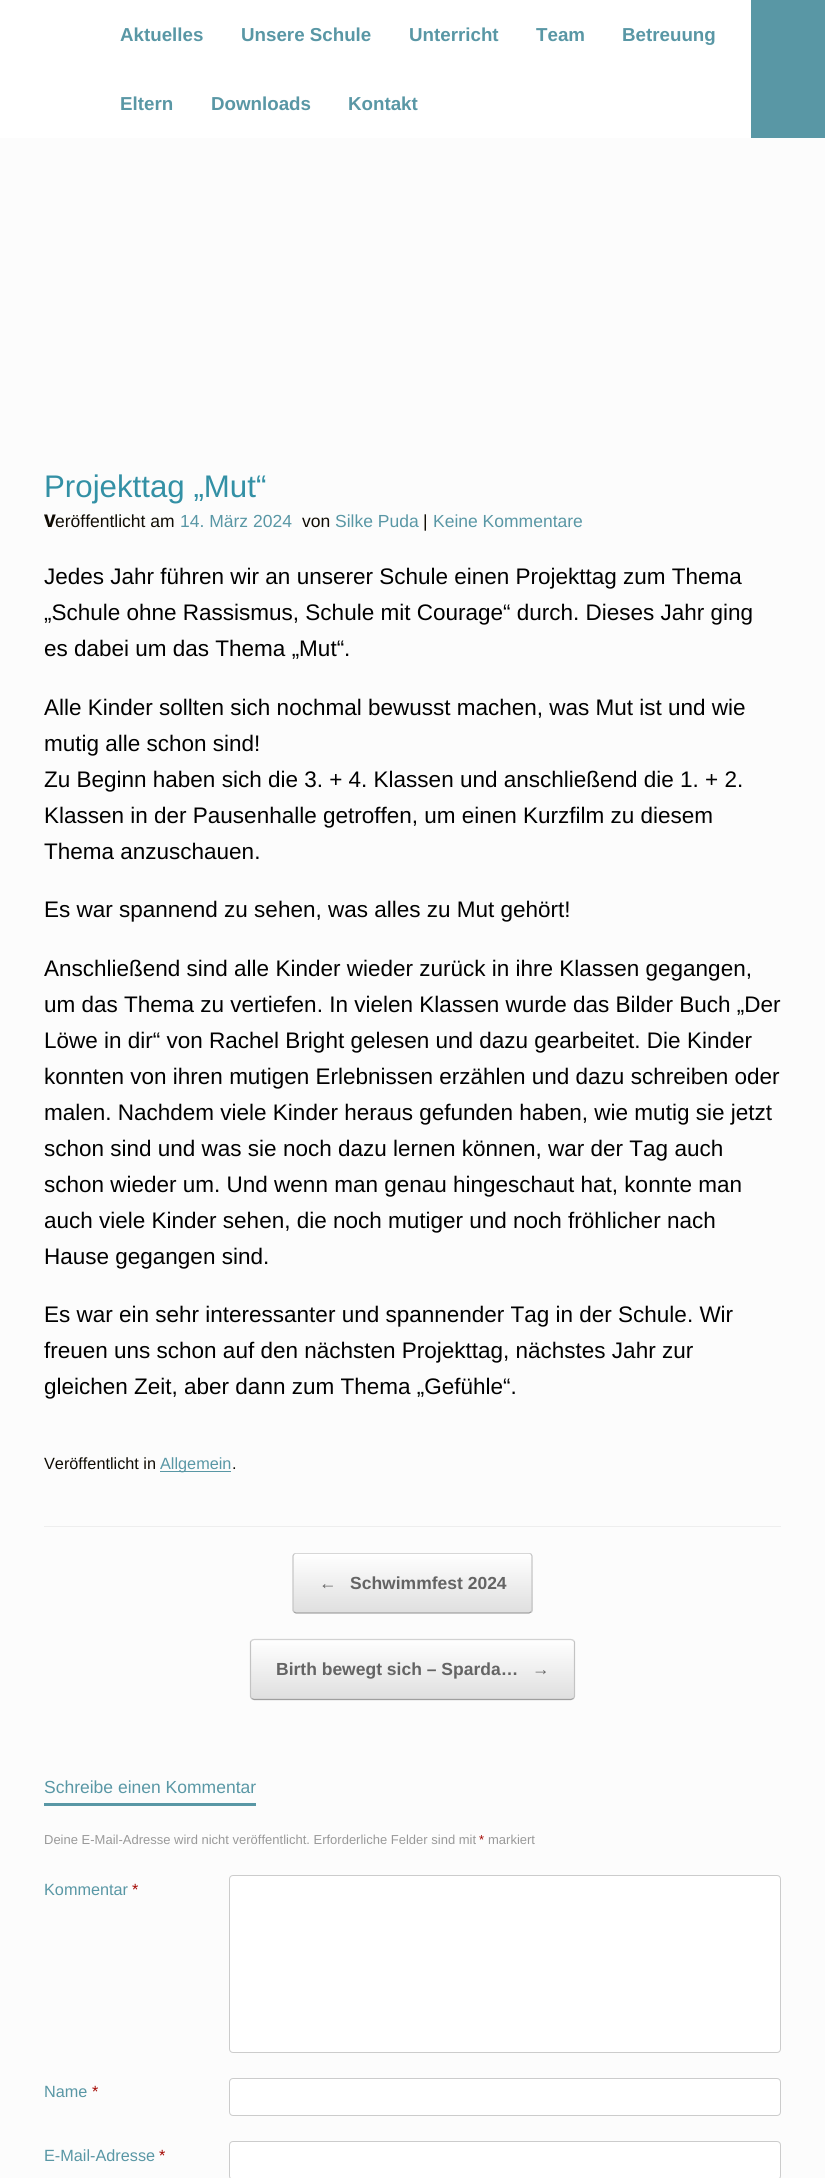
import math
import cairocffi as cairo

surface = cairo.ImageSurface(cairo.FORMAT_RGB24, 825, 2178)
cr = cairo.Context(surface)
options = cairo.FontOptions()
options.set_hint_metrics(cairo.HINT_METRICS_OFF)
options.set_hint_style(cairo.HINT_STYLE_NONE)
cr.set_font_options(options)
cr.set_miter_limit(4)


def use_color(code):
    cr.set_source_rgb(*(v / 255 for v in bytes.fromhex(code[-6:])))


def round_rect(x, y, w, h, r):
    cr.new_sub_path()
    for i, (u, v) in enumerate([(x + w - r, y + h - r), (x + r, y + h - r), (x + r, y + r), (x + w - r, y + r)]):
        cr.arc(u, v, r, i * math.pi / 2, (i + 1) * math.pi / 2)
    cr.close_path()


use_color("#ffffff")
cr.paint()
cr.select_font_face("Liberation Sans", cairo.FONT_SLANT_NORMAL, cairo.FONT_WEIGHT_BOLD)
cr.set_font_size(18.75)
use_color("#5997a5")
cr.move_to(120, 41)
cr.show_text("Aktuelles")
cr.move_to(241, 41)
cr.show_text("Unsere Schule")
cr.move_to(409, 41)
cr.show_text("Unterricht")
cr.move_to(536, 41)
cr.show_text("Team")
cr.move_to(622, 41)
cr.show_text("Betreuung")
cr.move_to(120, 110)
cr.show_text("Eltern")
cr.move_to(211, 110)
cr.show_text("Downloads")
cr.move_to(348, 110)
cr.show_text("Kontakt")
cr.rectangle(751, 0, 74, 138)
cr.fill()
use_color("#fcfcfc")
cr.rectangle(0, 138, 825, 2040)
cr.fill()
use_color("#eeeeee")
cr.rectangle(44, 1526, 737, 1)
cr.fill()
cr.select_font_face("Liberation Sans")
cr.set_font_size(31.25)
use_color("#3390a5")
cr.move_to(44, 497)
cr.show_text("Projekttag „Mut“")
cr.select_font_face("Noto Sans ExtraBold")
cr.set_font_size(17.5)
use_color("#0f0b03")
cr.move_to(44, 527)
cr.show_text("V")
cr.select_font_face("Liberation Sans")
cr.move_to(55, 527)
cr.show_text("eröffentlicht am")
use_color("#5997a5")
cr.move_to(180, 527)
cr.show_text("14. März 2024")
use_color("#0f0b03")
cr.move_to(302, 527)
cr.show_text("von")
use_color("#5997a5")
cr.move_to(335, 527)
cr.show_text("Silke Puda")
use_color("#0f0b03")
cr.move_to(423, 527)
cr.show_text("|")
use_color("#5997a5")
cr.move_to(433, 527)
cr.show_text("Keine Kommentare")
cr.set_font_size(22.5)
use_color("#000000")
cr.move_to(44, 584)
cr.show_text("Jedes Jahr führen wir an unserer Schule einen Projekttag zum Thema")
cr.move_to(44, 620)
cr.show_text("„Schule ohne Rassismus, Schule mit Courage“ durch. Dieses Jahr ging")
cr.move_to(44, 656)
cr.show_text("es dabei um das Thema „Mut“.")
cr.move_to(44, 715)
cr.show_text("Alle Kinder sollten sich nochmal bewusst machen, was Mut ist und wie")
cr.move_to(44, 751)
cr.show_text("mutig alle schon sind!")
cr.move_to(44, 787)
cr.show_text("Zu Beginn haben sich die 3. + 4. Klassen und anschließend die 1. + 2.")
cr.move_to(44, 823)
cr.show_text("Klassen in der Pausenhalle getroffen, um einen Kurzfilm zu diesem")
cr.move_to(44, 859)
cr.show_text("Thema anzuschauen.")
cr.move_to(44, 917)
cr.show_text("Es war spannend zu sehen, was alles zu Mut gehört!")
cr.move_to(44, 976)
cr.show_text("Anschließend sind alle Kinder wieder zurück in ihre Klassen gegangen,")
cr.move_to(44, 1012)
cr.show_text("um das Thema zu vertiefen. In vielen Klassen wurde das Bilder Buch „Der")
cr.move_to(44, 1048)
cr.show_text("Löwe in dir“ von Rachel Bright gelesen und dazu gearbeitet. Die Kinder")
cr.move_to(44, 1084)
cr.show_text("konnten von ihren mutigen Erlebnissen erzählen und dazu schreiben oder")
cr.move_to(44, 1120)
cr.show_text("malen. Nachdem viele Kinder heraus gefunden haben, wie mutig sie jetzt")
cr.move_to(44, 1156)
cr.show_text("schon sind und was sie noch dazu lernen können, war der Tag auch")
cr.move_to(44, 1192)
cr.show_text("schon wieder um. Und wenn man genau hingeschaut hat, konnte man")
cr.move_to(44, 1228)
cr.show_text("auch viele Kinder sehen, die noch mutiger und noch fröhlicher nach")
cr.move_to(44, 1264)
cr.show_text("Hause gegangen sind.")
cr.move_to(44, 1322)
cr.show_text("Es war ein sehr interessanter und spannender Tag in der Schule. Wir")
cr.move_to(44, 1358)
cr.show_text("freuen uns schon auf den nächsten Projekttag, nächstes Jahr zur")
cr.move_to(44, 1394)
cr.show_text("gleichen Zeit, aber dann zum Thema „Gefühle“.")
cr.set_font_size(16.25)
use_color("#0f0b03")
cr.move_to(44, 1469)
cr.show_text("Veröffentlicht in")
use_color("#5997a5")
cr.rectangle(160, 1471, 71, 1)
cr.fill()
cr.move_to(160, 1469)
cr.show_text("Allgemein")
use_color("#0f0b03")
cr.move_to(232, 1469)
cr.show_text(".")
cr.save()
round_rect(293, 1553, 240, 61, 4)
cr.clip()
gradient = cairo.LinearGradient(294, 1554, 294, 1495)
gradient.add_color_stop_rgba(0, 0.875, 0.875, 0.875, 1)
gradient.add_color_stop_rgba(1, 1, 1, 1, 1)
cr.set_source(gradient)
cr.rectangle(293, 1553, 240, 1)
cr.fill()
gradient = cairo.LinearGradient(294, 1613, 294, 1554)
gradient.add_color_stop_rgba(0, 0.875, 0.875, 0.875, 1)
gradient.add_color_stop_rgba(1, 1, 1, 1, 1)
cr.set_source(gradient)
cr.rectangle(293, 1554, 240, 59)
cr.fill()
gradient = cairo.LinearGradient(294, 1671, 294, 1613)
gradient.add_color_stop_rgba(0, 0.875, 0.875, 0.875, 1)
gradient.add_color_stop_rgba(1, 1, 1, 1, 1)
cr.set_source(gradient)
cr.rectangle(293, 1613, 240, 1)
cr.fill()
cr.restore()
cr.save()
cr.rectangle(44, 1553, 737, 172)
cr.clip()
cr.new_path()
cr.move_to(294, 1554)
cr.line_to(296, 1553)
cr.line_to(529, 1553)
cr.line_to(531, 1554)
use_color("#d2d2d2")
cr.set_line_width(1.2)
cr.stroke()
cr.restore()
cr.new_path()
cr.move_to(531, 1554)
cr.line_to(532, 1556)
cr.line_to(532, 1610.5)
cr.line_to(531, 1612)
use_color("#c3c3c3")
cr.set_line_width(1.2)
cr.stroke()
cr.new_path()
cr.move_to(531, 1612)
cr.line_to(529, 1613)
cr.line_to(296, 1613)
cr.line_to(294, 1612)
use_color("#9f9f9f")
cr.stroke()
cr.new_path()
cr.move_to(294, 1612)
cr.line_to(293, 1610.5)
cr.line_to(293, 1556)
cr.line_to(294, 1554)
use_color("#c3c3c3")
cr.stroke()
cr.select_font_face("Liberation Sans", cairo.FONT_SLANT_NORMAL, cairo.FONT_WEIGHT_BOLD)
cr.set_font_size(17.5)
use_color("#646464")
cr.move_to(319, 1589)
cr.show_text("←")
cr.move_to(350, 1589)
cr.show_text("Schwimmfest 2024")
cr.save()
round_rect(250, 1639, 325, 61, 4)
cr.clip()
gradient = cairo.LinearGradient(251, 1640, 251, 1581)
gradient.add_color_stop_rgba(0, 0.875, 0.875, 0.875, 1)
gradient.add_color_stop_rgba(1, 1, 1, 1, 1)
cr.set_source(gradient)
cr.rectangle(250, 1639, 325, 1)
cr.fill()
gradient = cairo.LinearGradient(251, 1699, 251, 1640)
gradient.add_color_stop_rgba(0, 0.875, 0.875, 0.875, 1)
gradient.add_color_stop_rgba(1, 1, 1, 1, 1)
cr.set_source(gradient)
cr.rectangle(250, 1640, 325, 59)
cr.fill()
gradient = cairo.LinearGradient(251, 1758, 251, 1699)
gradient.add_color_stop_rgba(0, 0.875, 0.875, 0.875, 1)
gradient.add_color_stop_rgba(1, 1, 1, 1, 1)
cr.set_source(gradient)
cr.rectangle(250, 1699, 325, 1)
cr.fill()
cr.restore()
cr.new_path()
cr.move_to(251.5, 1640.5)
cr.line_to(254, 1639.5)
cr.line_to(571, 1639.5)
cr.line_to(573.5, 1640.5)
use_color("#d2d2d2")
cr.stroke()
cr.new_path()
cr.move_to(573.5, 1640.5)
cr.line_to(574.5, 1642)
cr.line_to(574.5, 1696.5)
cr.line_to(573.5, 1698.5)
use_color("#c3c3c3")
cr.stroke()
cr.new_path()
cr.move_to(573.5, 1698.5)
cr.line_to(571, 1699.5)
cr.line_to(254, 1699.5)
cr.line_to(251.5, 1698.5)
use_color("#9f9f9f")
cr.stroke()
cr.new_path()
cr.move_to(251.5, 1698.5)
cr.line_to(250.5, 1696.5)
cr.line_to(250.5, 1642)
cr.line_to(251.5, 1640.5)
use_color("#c3c3c3")
cr.stroke()
use_color("#646464")
cr.move_to(276, 1675)
cr.show_text("Birth bewegt sich – Sparda…")
cr.move_to(532, 1675)
cr.show_text("→")
use_color("#5997a5")
cr.rectangle(44, 1803, 212, 3)
cr.fill()
cr.select_font_face("Liberation Sans")
cr.move_to(44, 1793)
cr.show_text("Schreibe einen Kommentar")
cr.set_font_size(13)
use_color("#999999")
cr.move_to(44, 1844)
cr.show_text("Deine E-Mail-Adresse wird nicht veröffentlicht. Erforderliche Felder sind mit")
use_color("#a40802")
cr.move_to(479, 1844)
cr.show_text("*")
use_color("#999999")
cr.move_to(488, 1844)
cr.show_text("markiert")
cr.set_font_size(16.25)
use_color("#5997a5")
cr.move_to(44, 1895)
cr.show_text("Kommentar")
use_color("#a40802")
cr.move_to(132, 1895)
cr.show_text("*")
use_color("#ffffff")
round_rect(229.5, 1875.5, 551, 177, 3.5)
cr.fill_preserve()
use_color("#cccccc")
cr.set_line_width(1)
cr.stroke()
use_color("#5997a5")
cr.move_to(44, 2097)
cr.show_text("Name")
use_color("#a40802")
cr.move_to(92, 2097)
cr.show_text("*")
use_color("#ffffff")
round_rect(229.5, 2078.5, 551, 37, 3.5)
cr.fill_preserve()
use_color("#cccccc")
cr.stroke()
use_color("#5997a5")
cr.move_to(44, 2161)
cr.show_text("E-Mail-Adresse")
use_color("#a40802")
cr.move_to(159, 2161)
cr.show_text("*")
use_color("#ffffff")
round_rect(229.5, 2141.5, 551, 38, 3.5)
cr.fill_preserve()
use_color("#cccccc")
cr.stroke()
surface.write_to_png("result.png")
